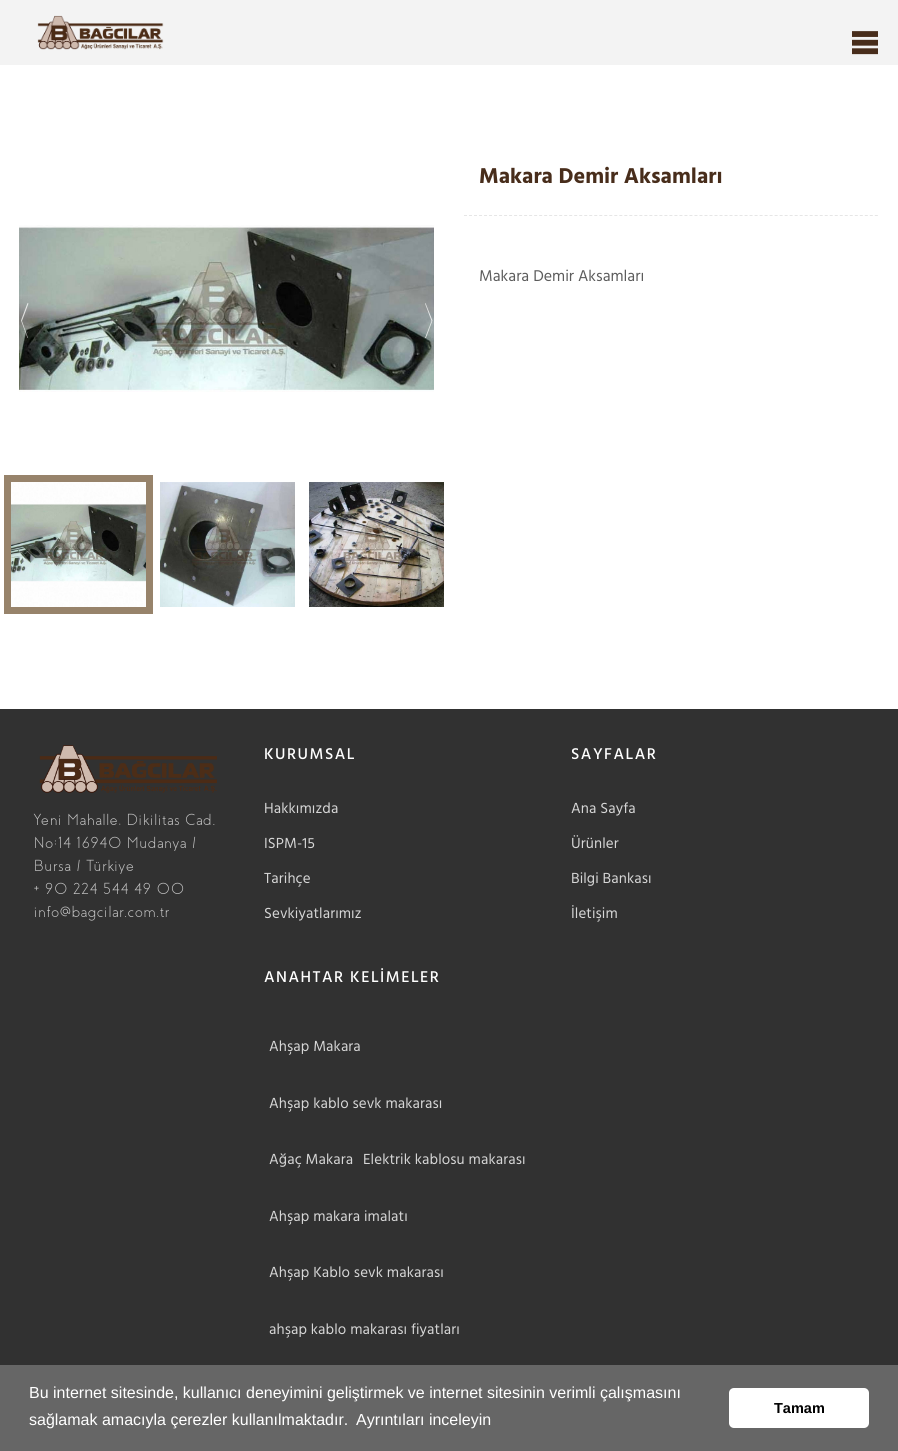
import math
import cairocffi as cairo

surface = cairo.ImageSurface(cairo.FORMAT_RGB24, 898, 1451)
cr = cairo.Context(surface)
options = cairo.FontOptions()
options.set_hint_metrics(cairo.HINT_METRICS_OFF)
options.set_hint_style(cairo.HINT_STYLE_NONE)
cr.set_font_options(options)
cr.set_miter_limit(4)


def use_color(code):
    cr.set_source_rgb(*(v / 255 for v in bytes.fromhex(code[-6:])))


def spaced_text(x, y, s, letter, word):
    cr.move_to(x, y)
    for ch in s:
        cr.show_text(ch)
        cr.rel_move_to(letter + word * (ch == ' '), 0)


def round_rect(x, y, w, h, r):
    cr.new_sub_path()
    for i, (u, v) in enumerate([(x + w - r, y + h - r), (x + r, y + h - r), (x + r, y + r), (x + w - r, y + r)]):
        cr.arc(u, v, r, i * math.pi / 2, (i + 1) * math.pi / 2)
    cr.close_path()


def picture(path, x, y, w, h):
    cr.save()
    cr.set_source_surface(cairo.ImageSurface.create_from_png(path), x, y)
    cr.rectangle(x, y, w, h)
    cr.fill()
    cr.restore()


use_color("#ffffff")
cr.paint()
use_color("#f3f3f3")
cr.rectangle(0, 0, 898, 65)
cr.fill()
picture("img1.png", 37, 15, 127, 35)
picture("img2.png", 852, 31, 26, 24)
picture("img3.png", 19, 225, 415, 167)
cr.set_source_rgba(1, 1, 1, 0.75)
cr.new_path()
cr.move_to(28.5, 303.5)
cr.line_to(22, 321)
cr.line_to(28, 338)
cr.line_to(27.5, 338)
cr.line_to(21, 320.5)
cr.line_to(27.5, 303)
cr.close_path()
cr.fill()
cr.new_path()
cr.move_to(432.5, 320.5)
cr.line_to(426, 338)
cr.line_to(425, 338)
cr.line_to(431.5, 321)
cr.line_to(425, 303.5)
cr.line_to(425.5, 303)
cr.close_path()
cr.fill()
use_color("#97836b")
cr.rectangle(4, 475, 149, 139)
cr.fill()
picture("img4.png", 11, 482, 135, 125)
picture("img5.png", 160, 482, 135, 125)
picture("img6.png", 309, 482, 135, 125)
cr.select_font_face("Hind", cairo.FONT_SLANT_NORMAL, cairo.FONT_WEIGHT_BOLD)
cr.set_font_size(22)
use_color("#482d1b")
cr.move_to(479, 183)
cr.show_text("Makara Demir Aksamları")
cr.new_path()
cr.move_to(464, 215.5)
cr.line_to(878, 215.5)
use_color("#e6e6e6")
cr.set_line_width(1)
cr.set_dash([3, 2.01])
cr.stroke()
cr.select_font_face("Hind")
cr.set_font_size(16)
use_color("#5c5c5c")
cr.move_to(479, 281)
cr.show_text("Makara Demir Aksamları")
use_color("#313131")
cr.rectangle(0, 709, 898, 656)
cr.fill()
picture("img7.png", 39, 745, 178, 48)
cr.select_font_face("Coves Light")
use_color("#c1c1c1")
spaced_text(34, 825, "Yeni Mahalle, Dikilitaş Cad.", 1, 0)
spaced_text(34, 848, "No:14 16940 Mudanya /", 1, 0)
spaced_text(34, 871, "Bursa / Türkiye", 1, 0)
spaced_text(34, 894, "+ 90 224 544 49 00", 1, 0)
spaced_text(34, 917, "info@bagcilar.com.tr", 1, 0)
cr.select_font_face("Hind Medium")
use_color("#ffffff")
spaced_text(264, 759, "KURUMSAL", 1.5, 0)
cr.select_font_face("Hind")
cr.set_font_size(15)
use_color("#d6d6d6")
spaced_text(264, 813, "Hakkımızda", 0.1, 0)
spaced_text(264, 848, "ISPM-15", 0.1, 0)
spaced_text(264, 883, "Tarihçe", 0.1, 0)
spaced_text(264, 918, "Sevkiyatlarımız", 0.1, 0)
cr.select_font_face("Hind Medium")
cr.set_font_size(16)
use_color("#ffffff")
spaced_text(571, 759, "SAYFALAR", 1.5, 0)
cr.select_font_face("Hind")
cr.set_font_size(15)
use_color("#d6d6d6")
spaced_text(571, 813, "Ana Sayfa", 0.1, 0)
spaced_text(571, 848, "Ürünler", 0.1, 0)
spaced_text(571, 883, "Bilgi Bankası", 0.1, 0)
spaced_text(571, 918, "İletişim", 0.1, 0)
cr.select_font_face("Hind Medium")
cr.set_font_size(16)
use_color("#ffffff")
spaced_text(264, 982, "ANAHTAR KELİMELER", 1.5, 0)
cr.select_font_face("Hind")
cr.set_font_size(15)
use_color("#d6d6d6")
spaced_text(269, 1051, "Ahşap Makara", 0.1, 0)
spaced_text(269, 1108, "Ahşap kablo sevk makarası", 0.1, 0)
spaced_text(269, 1164, "Ağaç Makara", 0.1, 0)
spaced_text(363, 1164, "Elektrik kablosu makarası", 0.1, 0)
spaced_text(269, 1221, "Ahşap makara imalatı", 0.1, 0)
spaced_text(269, 1277, "Ahşap Kablo sevk makarası", 0.1, 0)
spaced_text(269, 1334, "ahşap kablo makarası fiyatları", 0.1, 0)
use_color("#666666")
cr.rectangle(0, 1365, 898, 86)
cr.fill()
cr.select_font_face("Liberation Sans")
cr.set_font_size(16)
use_color("#ffffff")
cr.move_to(29, 1398)
cr.show_text("Bu internet sitesinde, kullanıcı deneyimini geliştirmek ve internet sitesinin verimli çalışmasını")
cr.move_to(29, 1425)
cr.show_text("sağlamak amacıyla çerezler kullanılmaktadır.")
cr.move_to(356, 1425)
cr.show_text("Ayrıntıları inceleyin")
round_rect(729, 1388, 140, 40, 5)
cr.fill()
cr.select_font_face("Liberation Sans", cairo.FONT_SLANT_NORMAL, cairo.FONT_WEIGHT_BOLD)
cr.set_font_size(14.5)
use_color("#000000")
cr.move_to(774, 1413)
cr.show_text("Tamam")
surface.write_to_png("result.png")
